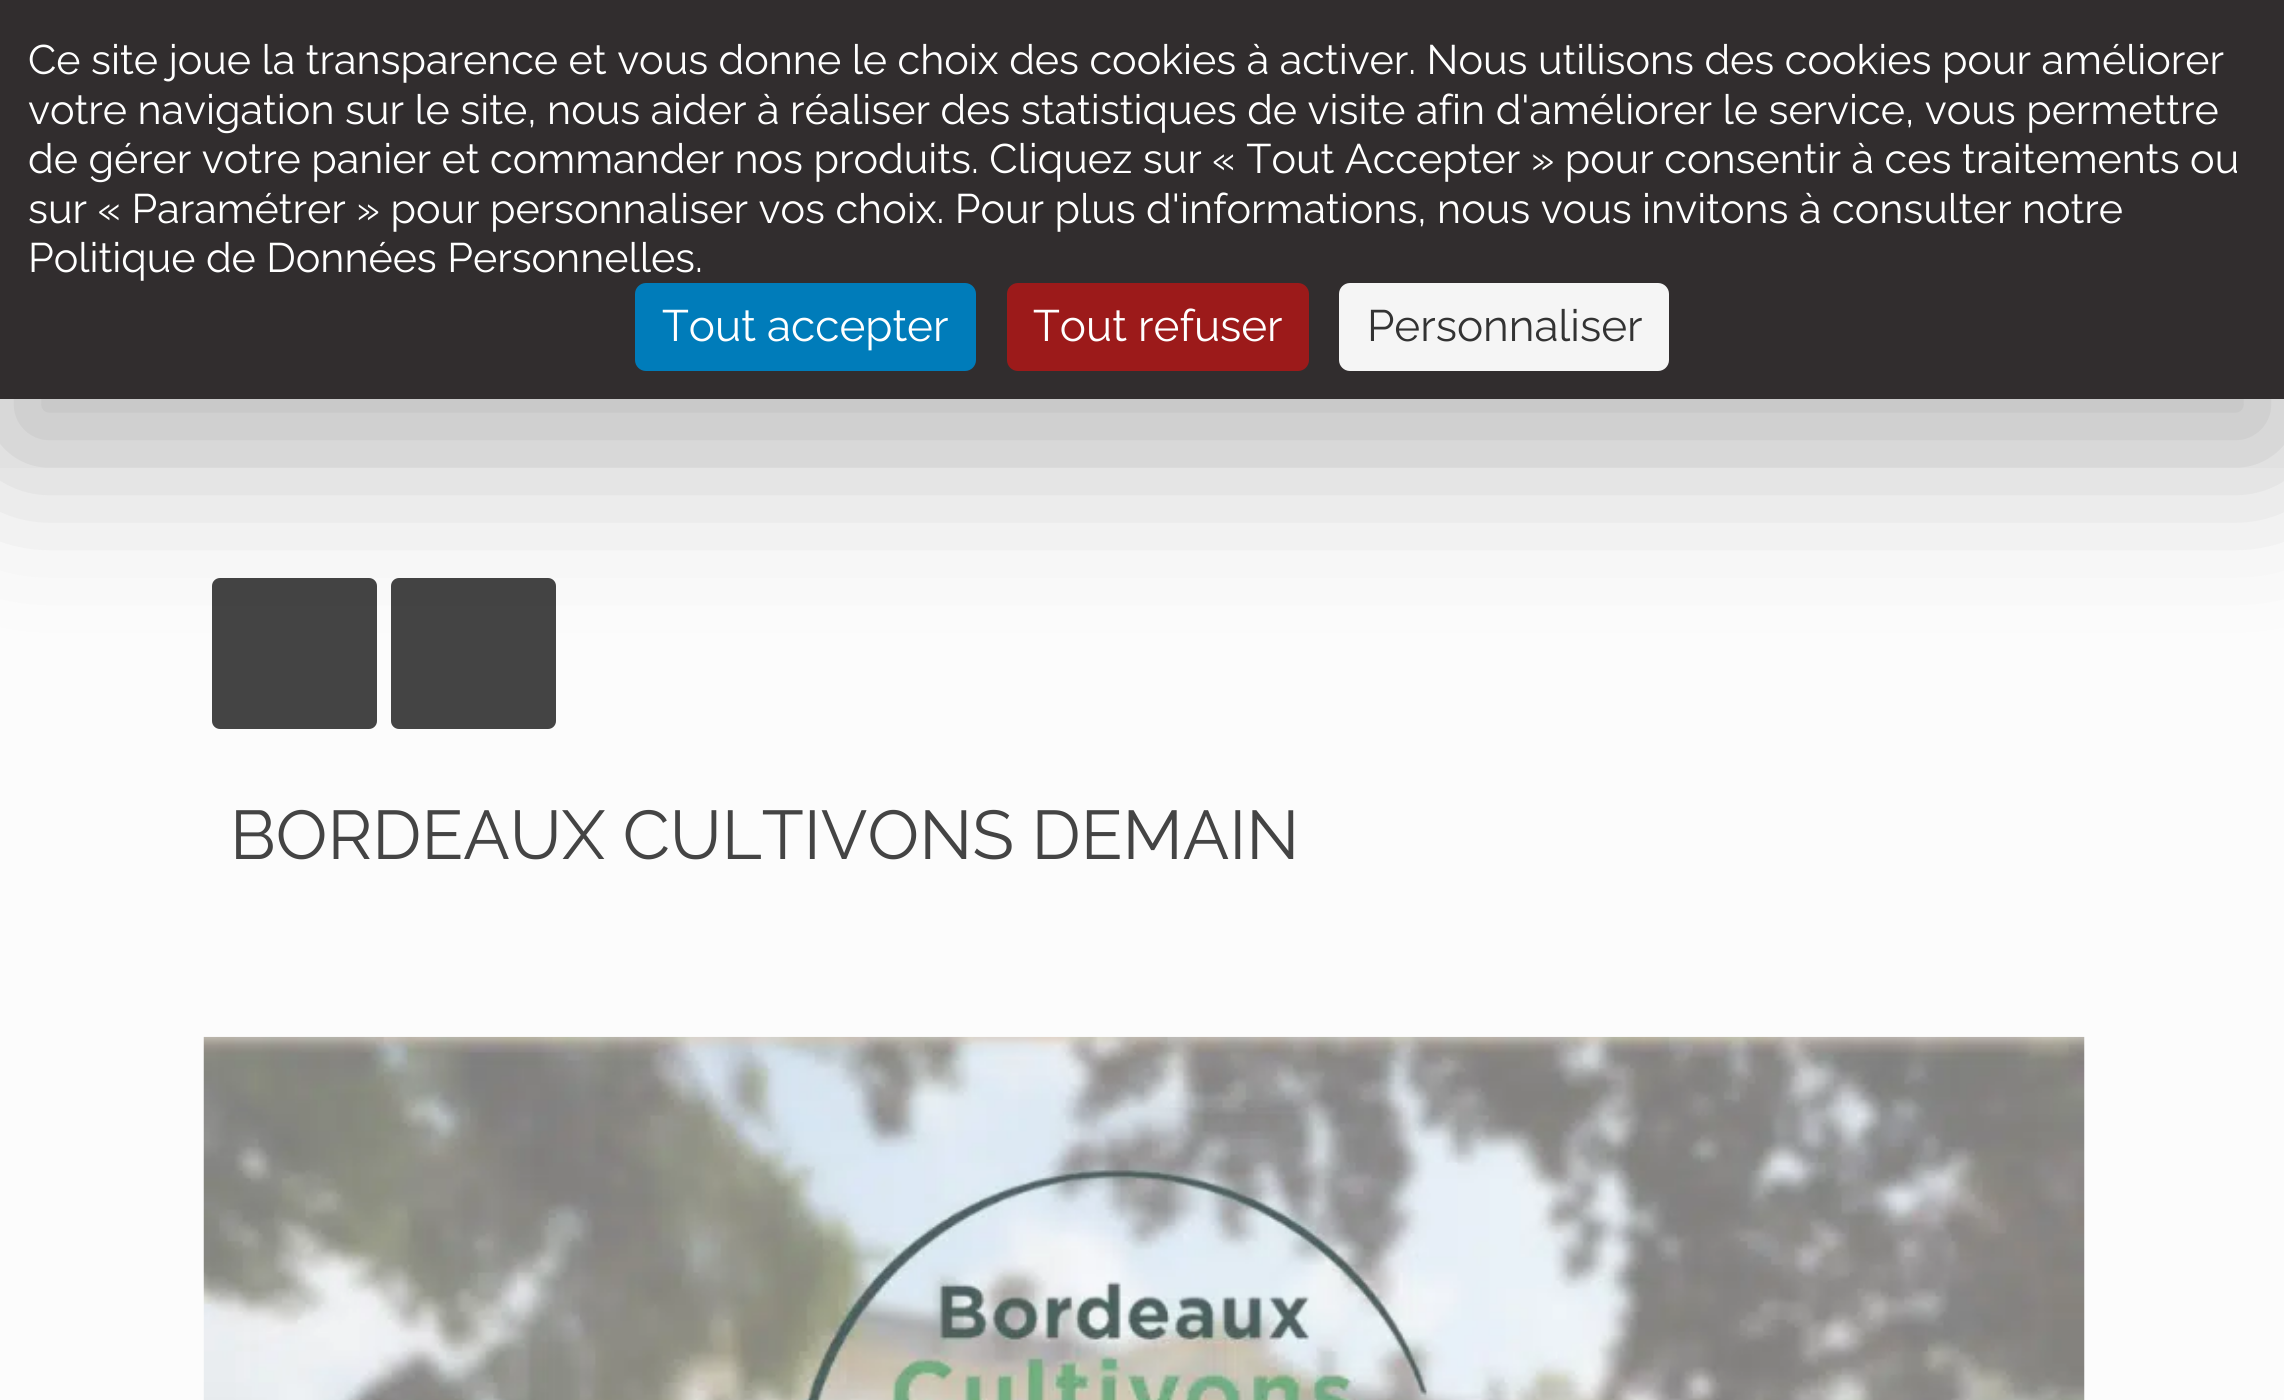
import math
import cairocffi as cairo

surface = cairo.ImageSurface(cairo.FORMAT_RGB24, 2284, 1400)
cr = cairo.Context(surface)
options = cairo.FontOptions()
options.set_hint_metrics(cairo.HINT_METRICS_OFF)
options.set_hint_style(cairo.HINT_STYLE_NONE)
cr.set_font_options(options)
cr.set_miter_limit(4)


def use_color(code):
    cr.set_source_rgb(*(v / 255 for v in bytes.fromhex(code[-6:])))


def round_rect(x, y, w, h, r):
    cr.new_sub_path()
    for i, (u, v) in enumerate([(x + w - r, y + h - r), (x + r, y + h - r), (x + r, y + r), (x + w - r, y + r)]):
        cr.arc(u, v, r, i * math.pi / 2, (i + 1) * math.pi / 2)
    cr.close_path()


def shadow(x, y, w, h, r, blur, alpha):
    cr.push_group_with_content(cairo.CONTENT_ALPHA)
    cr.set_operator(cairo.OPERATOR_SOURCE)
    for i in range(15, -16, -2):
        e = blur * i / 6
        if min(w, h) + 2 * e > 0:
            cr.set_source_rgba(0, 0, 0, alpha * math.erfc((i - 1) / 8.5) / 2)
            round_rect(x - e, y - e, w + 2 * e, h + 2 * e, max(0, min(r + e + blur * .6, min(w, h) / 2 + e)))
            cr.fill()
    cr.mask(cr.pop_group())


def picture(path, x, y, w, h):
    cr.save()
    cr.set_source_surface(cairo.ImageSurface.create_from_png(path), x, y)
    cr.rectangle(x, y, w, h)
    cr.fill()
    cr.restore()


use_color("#fcfcfc")
cr.paint()
use_color("#f7f7f7")
cr.rectangle(0, 399, 2284, 69)
cr.fill()
use_color("#444444")
round_rect(212, 578, 165, 151, 8)
cr.fill()
round_rect(391, 578, 165, 151, 8)
cr.fill()
use_color("#000000")
shadow(0, 55, 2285, 399, 0, 82.5, 0.25)
use_color("#312d2e")
cr.rectangle(0, 0, 2284, 399)
cr.fill()
cr.select_font_face("Raleway Thin")
cr.set_font_size(41.25)
use_color("#ffffff")
cr.move_to(28, 74)
cr.show_text("Ce site joue la transparence et vous donne le choix des cookies à activer. Nous utilisons des cookies pour améliorer")
cr.move_to(28, 124)
cr.show_text("votre navigation sur le site, nous aider à réaliser des statistiques de visite afin d'améliorer le service, vous permettre")
cr.move_to(28, 173)
cr.show_text("de gérer votre panier et commander nos produits. Cliquez sur « Tout Accepter » pour consentir à ces traitements ou")
cr.move_to(28, 223)
cr.show_text("sur « Paramétrer » pour personnaliser vos choix. Pour plus d'informations, nous vous invitons à consulter notre")
cr.move_to(28, 272)
cr.show_text("Politique de Données Personnelles.")
use_color("#007cba")
round_rect(635, 283, 341, 88, 11)
cr.fill()
cr.set_font_size(44)
use_color("#ffffff")
cr.move_to(662, 341)
cr.show_text("Tout accepter")
use_color("#9c1a1a")
round_rect(1007, 283, 302, 88, 11)
cr.fill()
use_color("#ffffff")
cr.move_to(1033, 341)
cr.show_text("Tout refuser")
use_color("#f5f5f5")
round_rect(1339, 283, 330, 88, 11)
cr.fill()
use_color("#333333")
cr.move_to(1367, 341)
cr.show_text("Personnaliser")
cr.set_font_size(68.75)
use_color("#444444")
cr.move_to(230, 859)
cr.show_text("BORDEAUX CULTIVONS DEMAIN")
picture("img1.png", 203, 1036, 1882, 364)
surface.write_to_png("result.png")
